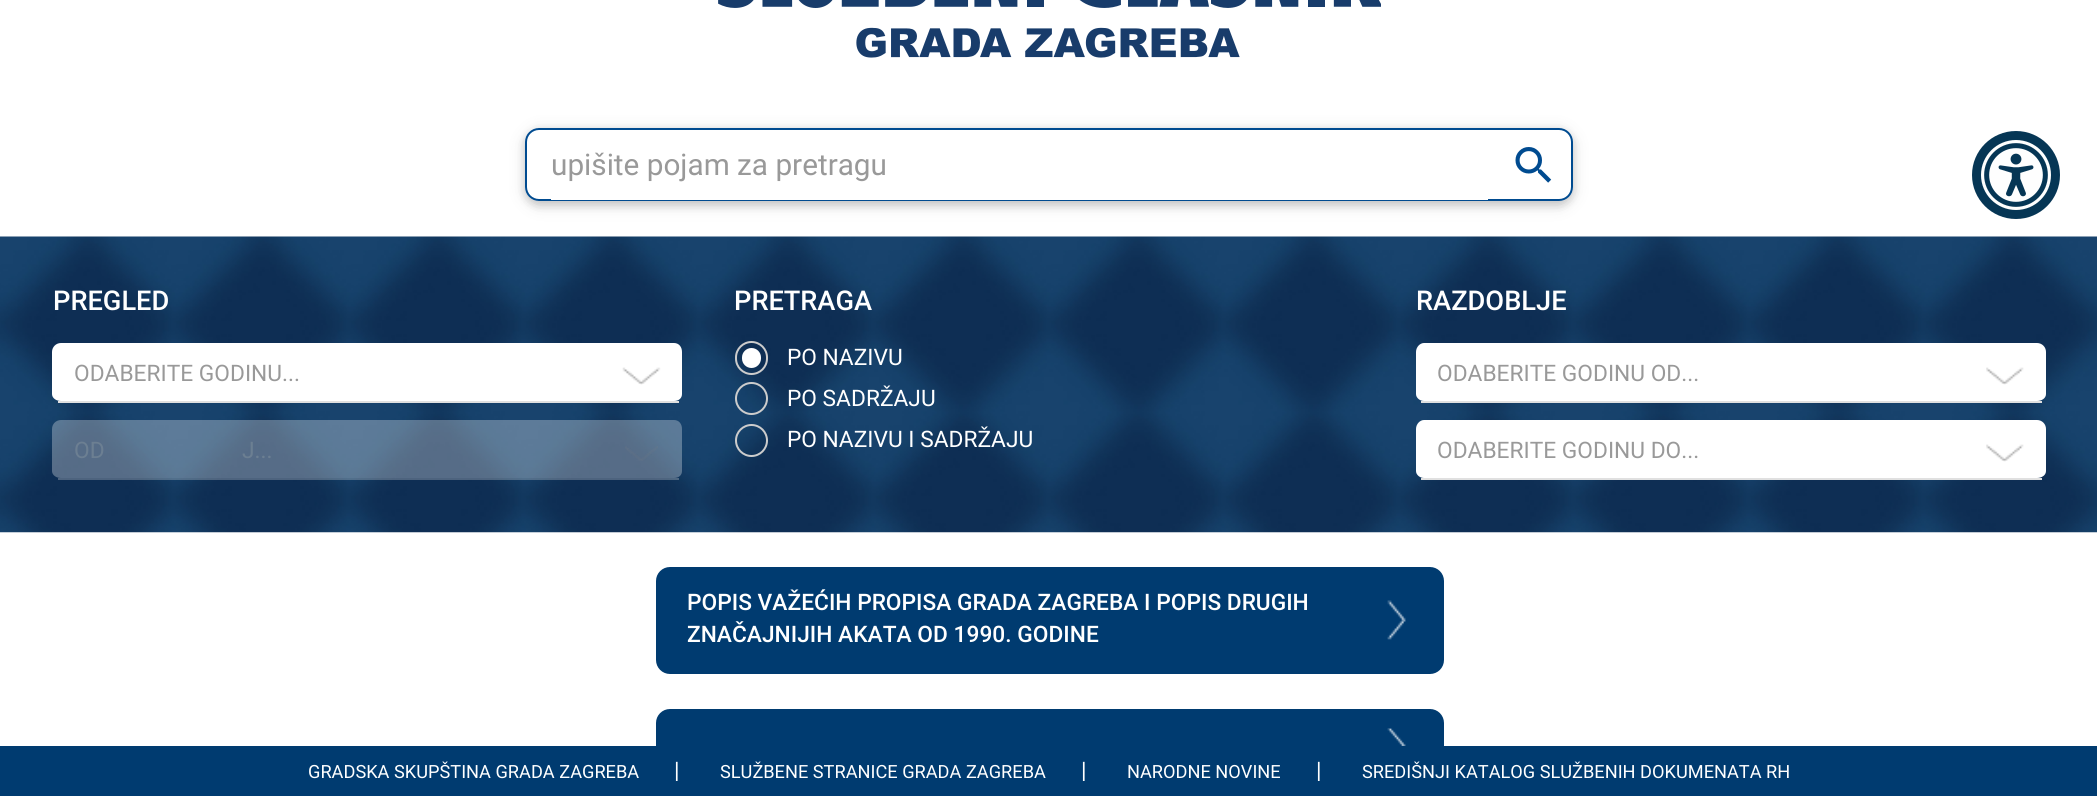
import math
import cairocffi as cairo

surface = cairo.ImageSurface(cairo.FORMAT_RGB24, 2097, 796)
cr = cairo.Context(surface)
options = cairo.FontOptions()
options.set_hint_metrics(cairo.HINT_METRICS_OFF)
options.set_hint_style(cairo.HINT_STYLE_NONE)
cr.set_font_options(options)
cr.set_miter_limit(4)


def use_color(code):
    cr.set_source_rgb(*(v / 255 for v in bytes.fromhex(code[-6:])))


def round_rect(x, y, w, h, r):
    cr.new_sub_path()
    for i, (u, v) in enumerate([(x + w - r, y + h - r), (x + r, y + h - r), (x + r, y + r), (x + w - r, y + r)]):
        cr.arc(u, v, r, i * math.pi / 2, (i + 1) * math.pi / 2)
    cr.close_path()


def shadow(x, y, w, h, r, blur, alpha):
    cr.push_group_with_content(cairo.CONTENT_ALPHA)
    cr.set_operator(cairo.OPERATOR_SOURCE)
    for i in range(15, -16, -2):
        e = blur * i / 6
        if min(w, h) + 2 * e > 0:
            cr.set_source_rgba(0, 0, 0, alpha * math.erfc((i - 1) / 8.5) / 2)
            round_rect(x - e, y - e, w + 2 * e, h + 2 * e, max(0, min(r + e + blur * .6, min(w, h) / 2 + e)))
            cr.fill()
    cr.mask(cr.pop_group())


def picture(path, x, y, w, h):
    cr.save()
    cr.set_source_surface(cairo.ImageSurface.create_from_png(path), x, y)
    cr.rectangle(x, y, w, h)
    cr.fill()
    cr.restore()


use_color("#ffffff")
cr.paint()
picture("img1.png", 718, 0, 663, 58)
cr.save()
cr.set_fill_rule(cairo.FILL_RULE_EVEN_ODD)
cr.new_path()
cr.move_to(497, 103)
cr.line_to(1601, 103)
cr.line_to(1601, 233)
cr.line_to(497, 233)
cr.close_path()
cr.move_to(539, 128)
cr.line_to(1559, 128)
cr.curve_to(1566.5, 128, 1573, 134.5, 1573, 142)
cr.line_to(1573, 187)
cr.curve_to(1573, 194.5, 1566.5, 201, 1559, 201)
cr.line_to(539, 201)
cr.curve_to(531.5, 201, 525, 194.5, 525, 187)
cr.line_to(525, 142)
cr.curve_to(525, 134.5, 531.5, 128, 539, 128)
cr.close_path()
cr.clip()
use_color("#000000")
shadow(525, 131, 1048, 74, 14, 9, 0.12)
cr.restore()
cr.save()
cr.set_fill_rule(cairo.FILL_RULE_EVEN_ODD)
cr.new_path()
cr.move_to(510, 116)
cr.line_to(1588, 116)
cr.line_to(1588, 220)
cr.line_to(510, 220)
cr.close_path()
cr.move_to(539, 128)
cr.line_to(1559, 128)
cr.curve_to(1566.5, 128, 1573, 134.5, 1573, 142)
cr.line_to(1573, 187)
cr.curve_to(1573, 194.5, 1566.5, 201, 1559, 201)
cr.line_to(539, 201)
cr.curve_to(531.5, 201, 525, 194.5, 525, 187)
cr.line_to(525, 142)
cr.curve_to(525, 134.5, 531.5, 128, 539, 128)
cr.close_path()
cr.clip()
use_color("#000000")
shadow(525, 131, 1048, 74, 14, 4.5, 0.16)
cr.restore()
round_rect(526, 129, 1046, 71, 13)
use_color("#004b90")
cr.stroke()
use_color("#ffffff")
cr.rectangle(551, 199, 937, 1)
cr.fill()
cr.select_font_face("Roboto")
cr.set_font_size(29.75)
use_color("#999999")
cr.move_to(551, 175)
cr.show_text("upišite pojam za pretragu")
picture("img2.png", 1515, 147, 37, 36)
picture("img3.png", 0, 236, 2097, 297)
cr.select_font_face("Roboto Medium")
cr.set_font_size(27.25)
use_color("#ffffff")
cr.move_to(53, 310)
cr.show_text("PREGLED")
cr.new_path()
cr.move_to(61, 343)
cr.line_to(674, 343)
cr.curve_to(679, 343, 682, 347, 682, 352)
cr.line_to(682, 394)
cr.curve_to(682, 398, 679, 401, 674, 401)
cr.line_to(61, 401)
cr.curve_to(56, 401, 52, 398, 52, 394)
cr.line_to(52, 352)
cr.curve_to(52, 347, 56, 343, 61, 343)
cr.close_path()
cr.fill()
use_color("#e0e0e0")
cr.rectangle(58, 401, 621, 2)
cr.fill()
cr.select_font_face("Roboto")
cr.set_font_size(22.75)
use_color("#999999")
cr.move_to(74, 381)
cr.show_text("ODABERITE GODINU...")
picture("img4.png", 622, 367, 39, 18)
cr.set_source_rgba(1, 1, 1, 0.3)
cr.new_path()
cr.move_to(61, 420)
cr.line_to(674, 420)
cr.curve_to(679, 420, 682, 424, 682, 429)
cr.line_to(682, 471)
cr.curve_to(682, 475, 679, 478, 674, 478)
cr.line_to(61, 478)
cr.curve_to(56, 478, 52, 475, 52, 471)
cr.line_to(52, 429)
cr.curve_to(52, 424, 56, 420, 61, 420)
cr.close_path()
cr.fill()
cr.set_source_rgba(0.878, 0.878, 0.878, 0.3)
cr.rectangle(58, 478, 621, 2)
cr.fill()
use_color("#6c7f92")
cr.move_to(74, 458)
cr.show_text("OD")
cr.move_to(242, 458)
cr.show_text("J...")
picture("img5.png", 625, 446, 33, 15)
cr.select_font_face("Roboto Medium")
cr.set_font_size(27.25)
use_color("#ffffff")
cr.move_to(734, 310)
cr.show_text("PRETRAGA")
round_rect(736, 342, 31, 32, 15.5)
use_color("#cccccc")
cr.stroke()
use_color("#ffffff")
round_rect(742, 348, 19, 20, 9.5)
cr.fill()
cr.select_font_face("Roboto")
cr.set_font_size(22.75)
cr.move_to(787, 365)
cr.show_text("PO NAZIVU")
cr.new_path()
cr.arc(751.5, 398.5, 15.5, 0, 2 * math.pi)
use_color("#cccccc")
cr.stroke()
use_color("#ffffff")
cr.move_to(787, 406)
cr.show_text("PO SADRŽAJU")
cr.new_path()
cr.arc(751.5, 440.5, 15.5, 0, 2 * math.pi)
use_color("#cccccc")
cr.stroke()
use_color("#ffffff")
cr.move_to(787, 447)
cr.show_text("PO NAZIVU I SADRŽAJU")
cr.select_font_face("Roboto Medium")
cr.set_font_size(27.25)
cr.move_to(1416, 310)
cr.show_text("RAZDOBLJE")
cr.new_path()
cr.move_to(1424, 343)
cr.line_to(2037, 343)
cr.curve_to(2042, 343, 2046, 347, 2046, 352)
cr.line_to(2046, 394)
cr.curve_to(2046, 398, 2042, 401, 2037, 401)
cr.line_to(1424, 401)
cr.curve_to(1420, 401, 1416, 398, 1416, 394)
cr.line_to(1416, 352)
cr.curve_to(1416, 347, 1420, 343, 1424, 343)
cr.close_path()
cr.fill()
use_color("#e0e0e0")
cr.rectangle(1421, 401, 621, 2)
cr.fill()
cr.select_font_face("Roboto")
cr.set_font_size(22.75)
use_color("#999999")
cr.move_to(1437, 381)
cr.show_text("ODABERITE GODINU OD...")
picture("img6.png", 1986, 367, 38, 18)
use_color("#ffffff")
cr.new_path()
cr.move_to(1424, 420)
cr.line_to(2037, 420)
cr.curve_to(2042, 420, 2046, 424, 2046, 429)
cr.line_to(2046, 471)
cr.curve_to(2046, 475, 2042, 478, 2037, 478)
cr.line_to(1424, 478)
cr.curve_to(1420, 478, 1416, 475, 1416, 471)
cr.line_to(1416, 429)
cr.curve_to(1416, 424, 1420, 420, 1424, 420)
cr.close_path()
cr.fill()
use_color("#e0e0e0")
cr.rectangle(1421, 478, 621, 2)
cr.fill()
use_color("#999999")
cr.move_to(1437, 458)
cr.show_text("ODABERITE GODINU DO...")
picture("img6.png", 1986, 444, 38, 18)
use_color("#003b70")
round_rect(656, 567, 788, 107, 14)
cr.fill()
cr.select_font_face("Roboto Medium")
use_color("#ffffff")
cr.move_to(687, 610)
cr.show_text("POPIS VAŽEĆIH PROPISA GRADA ZAGREBA I POPIS DRUGIH")
cr.move_to(687, 642)
cr.show_text("ZNAČAJNIJIH AKATA OD 1990. GODINE")
picture("img7.png", 1387, 600, 19, 40)
use_color("#003b70")
round_rect(656, 709, 788, 73, 14)
cr.fill()
picture("img8.png", 1387, 728, 19, 18)
cr.rectangle(0, 746, 2097, 50)
cr.fill()
cr.select_font_face("Roboto")
cr.set_font_size(18.2)
use_color("#ffffff")
cr.move_to(308, 778)
cr.show_text("GRADSKA SKUPŠTINA GRADA ZAGREBA")
cr.set_font_size(22.75)
cr.move_to(674, 778)
cr.show_text("|")
cr.set_font_size(18.2)
cr.move_to(720, 778)
cr.show_text("SLUŽBENE STRANICE GRADA ZAGREBA")
cr.set_font_size(22.75)
cr.move_to(1081, 778)
cr.show_text("|")
cr.set_font_size(18.2)
cr.move_to(1127, 778)
cr.show_text("NARODNE NOVINE")
cr.set_font_size(22.75)
cr.move_to(1316, 778)
cr.show_text("|")
cr.set_font_size(18.2)
cr.move_to(1362, 778)
cr.show_text("SREDIŠNJI KATALOG SLUŽBENIH DOKUMENATA RH")
use_color("#063655")
cr.new_path()
cr.arc(2016, 175, 44, 0, 2 * math.pi)
cr.fill()
picture("img9.png", 1981, 140, 70, 70)
surface.write_to_png("result.png")
